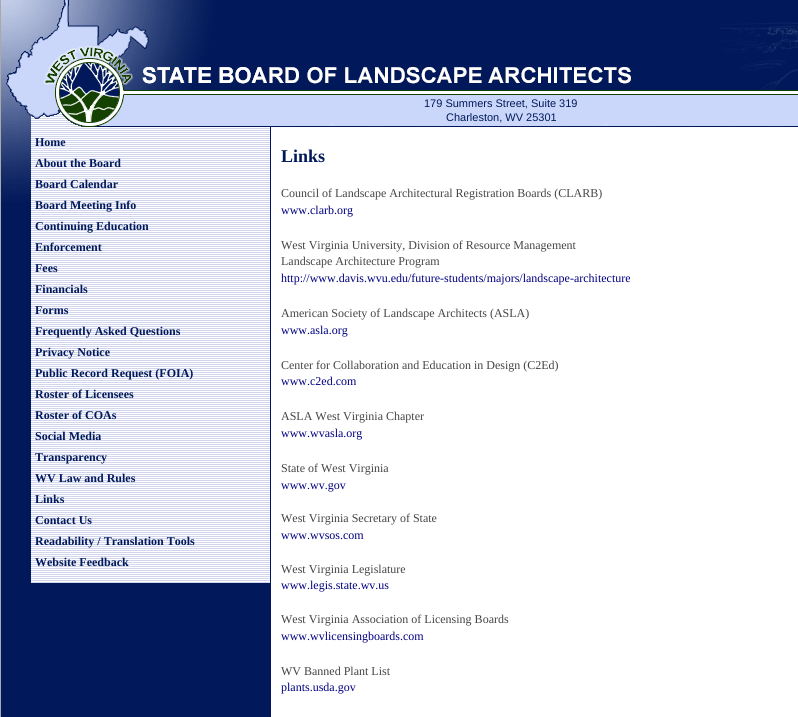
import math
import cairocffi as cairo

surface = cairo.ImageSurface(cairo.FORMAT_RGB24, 798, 717)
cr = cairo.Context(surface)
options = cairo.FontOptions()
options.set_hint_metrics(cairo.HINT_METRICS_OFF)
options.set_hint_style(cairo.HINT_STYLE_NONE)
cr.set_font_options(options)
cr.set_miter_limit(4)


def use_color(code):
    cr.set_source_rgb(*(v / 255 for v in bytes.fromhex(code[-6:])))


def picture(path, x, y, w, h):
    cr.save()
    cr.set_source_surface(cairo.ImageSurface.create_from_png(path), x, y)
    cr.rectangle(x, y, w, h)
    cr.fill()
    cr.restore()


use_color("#a9a9a9")
cr.paint()
picture("img1.png", 1, 0, 797, 127)
cr.select_font_face("Liberation Sans")
cr.set_font_size(11)
use_color("#01195a")
cr.move_to(424, 107)
cr.show_text("179 Summers Street, Suite 319")
cr.move_to(446, 121)
cr.show_text("Charleston, WV 25301")
cr.rectangle(1, 209, 270, 508)
cr.fill()
picture("img2.png", 1, 127, 30, 82)
picture("img3.png", 31, 127, 240, 456)
cr.select_font_face("Liberation Serif", cairo.FONT_SLANT_NORMAL, cairo.FONT_WEIGHT_BOLD)
cr.set_font_size(12)
cr.move_to(35, 146)
cr.show_text("Home")
cr.move_to(35, 167)
cr.show_text("About the Board")
cr.move_to(35, 188)
cr.show_text("Board Calendar")
cr.move_to(35, 209)
cr.show_text("Board Meeting Info")
cr.move_to(35, 230)
cr.show_text("Continuing Education")
cr.move_to(35, 251)
cr.show_text("Enforcement")
cr.move_to(35, 272)
cr.show_text("Fees")
cr.move_to(35, 293)
cr.show_text("Financials")
cr.move_to(35, 314)
cr.show_text("Forms")
cr.move_to(35, 335)
cr.show_text("Frequently Asked Questions")
cr.move_to(35, 356)
cr.show_text("Privacy Notice")
cr.move_to(35, 377)
cr.show_text("Public Record Request (FOIA)")
cr.move_to(35, 398)
cr.show_text("Roster of Licensees")
cr.move_to(35, 419)
cr.show_text("Roster of COAs")
cr.move_to(35, 440)
cr.show_text("Social Media")
cr.move_to(35, 461)
cr.show_text("Transparency")
cr.move_to(35, 482)
cr.show_text("WV Law and Rules")
cr.move_to(35, 503)
cr.show_text("Links")
cr.move_to(35, 524)
cr.show_text("Contact Us")
cr.move_to(35, 545)
cr.show_text("Readability / Translation Tools")
cr.move_to(35, 566)
cr.show_text("Website Feedback")
use_color("#ffffff")
cr.rectangle(271, 127, 527, 590)
cr.fill()
cr.set_font_size(18)
use_color("#01195a")
cr.move_to(281, 162)
cr.show_text("Links")
cr.select_font_face("Liberation Serif")
cr.set_font_size(12)
use_color("#444444")
cr.move_to(281, 197)
cr.show_text("Council of Landscape Architectural Registration Boards (CLARB)")
use_color("#000080")
cr.move_to(281, 214)
cr.show_text("www.clarb.org")
use_color("#444444")
cr.move_to(281, 249)
cr.show_text("West Virginia University, Division of Resource Management")
cr.move_to(281, 265)
cr.show_text("Landscape Architecture Program")
use_color("#000080")
cr.move_to(281, 282)
cr.show_text("http://www.davis.wvu.edu/future-students/majors/landscape-architecture")
use_color("#444444")
cr.move_to(281, 317)
cr.show_text("American Society of Landscape Architects (ASLA)")
use_color("#000080")
cr.move_to(281, 334)
cr.show_text("www.asla.org")
use_color("#444444")
cr.move_to(281, 369)
cr.show_text("Center for Collaboration and Education in Design (C2Ed)")
use_color("#000080")
cr.move_to(281, 385)
cr.show_text("www.c2ed.com")
use_color("#444444")
cr.move_to(281, 420)
cr.show_text("ASLA West Virginia Chapter")
use_color("#000080")
cr.move_to(281, 437)
cr.show_text("www.wvasla.org")
use_color("#444444")
cr.move_to(281, 472)
cr.show_text("State of West Virginia")
use_color("#000080")
cr.move_to(281, 489)
cr.show_text("www.wv.gov")
use_color("#444444")
cr.move_to(281, 522)
cr.show_text("West Virginia Secretary of State")
use_color("#000080")
cr.move_to(281, 539)
cr.show_text("www.wvsos.com")
use_color("#444444")
cr.move_to(281, 573)
cr.show_text("West Virginia Legislature")
use_color("#000080")
cr.move_to(281, 589)
cr.show_text("www.legis.state.wv.us")
use_color("#444444")
cr.move_to(281, 623)
cr.show_text("West Virginia Association of Licensing Boards")
use_color("#000080")
cr.move_to(281, 640)
cr.show_text("www.wvlicensingboards.com")
use_color("#444444")
cr.move_to(281, 675)
cr.show_text("WV Banned Plant List")
use_color("#000080")
cr.move_to(281, 691)
cr.show_text("plants.usda.gov")
surface.write_to_png("result.png")
